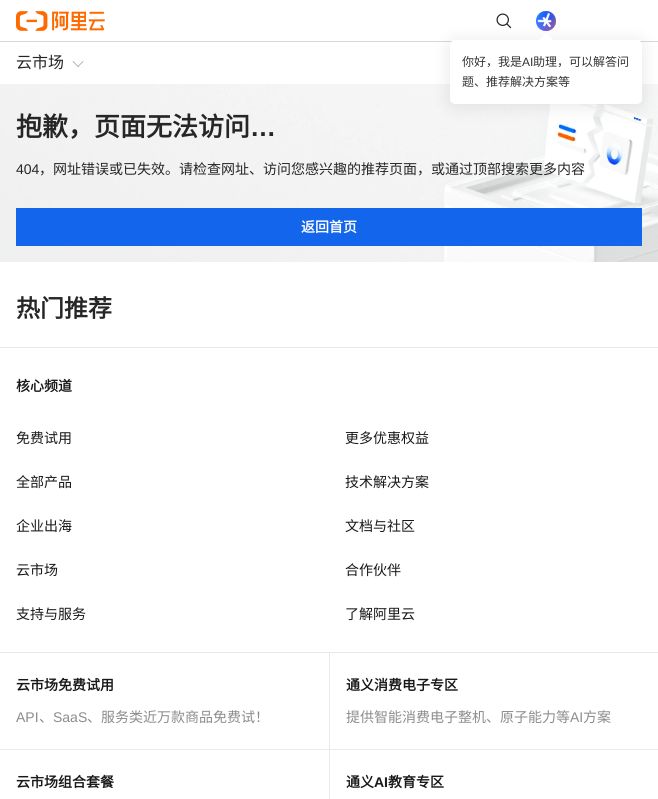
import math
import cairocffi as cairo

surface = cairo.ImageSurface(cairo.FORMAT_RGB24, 658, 799)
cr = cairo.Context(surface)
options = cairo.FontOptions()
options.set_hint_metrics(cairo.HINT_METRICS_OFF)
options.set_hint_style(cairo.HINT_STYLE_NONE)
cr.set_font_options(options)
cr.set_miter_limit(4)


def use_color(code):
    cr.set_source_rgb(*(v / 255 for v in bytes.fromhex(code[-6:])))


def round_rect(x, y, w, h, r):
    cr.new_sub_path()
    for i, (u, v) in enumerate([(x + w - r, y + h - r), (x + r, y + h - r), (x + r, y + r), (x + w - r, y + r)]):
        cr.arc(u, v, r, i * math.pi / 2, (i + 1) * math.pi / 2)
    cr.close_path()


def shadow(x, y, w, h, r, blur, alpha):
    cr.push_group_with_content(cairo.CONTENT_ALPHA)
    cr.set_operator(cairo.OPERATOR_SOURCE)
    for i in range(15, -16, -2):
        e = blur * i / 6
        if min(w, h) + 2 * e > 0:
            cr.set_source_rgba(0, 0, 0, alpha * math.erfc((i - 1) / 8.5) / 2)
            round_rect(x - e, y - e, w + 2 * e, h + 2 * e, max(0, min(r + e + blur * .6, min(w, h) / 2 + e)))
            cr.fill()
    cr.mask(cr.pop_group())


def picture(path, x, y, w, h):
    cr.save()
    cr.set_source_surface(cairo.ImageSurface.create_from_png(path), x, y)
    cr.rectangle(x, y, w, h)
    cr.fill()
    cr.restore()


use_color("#ffffff")
cr.paint()
cr.select_font_face("Noto Sans CJK SC")
cr.set_font_size(16)
use_color("#262626")
cr.move_to(16, 68)
cr.show_text("云市场")
use_color("#999999")
cr.new_path()
cr.move_to(83, 61)
cr.line_to(83.5, 61.5)
cr.line_to(78, 67)
cr.line_to(77.5, 66.5)
cr.close_path()
cr.fill()
cr.new_path()
cr.move_to(73, 61)
cr.line_to(78.5, 66.5)
cr.line_to(78, 67)
cr.line_to(72.5, 61.5)
cr.close_path()
cr.fill()
use_color("#d7d8d9")
cr.rectangle(0, 41, 658, 1)
cr.fill()
picture("img1.png", 16, 11, 89, 20)
picture("img2.png", 496, 13, 16, 16)
use_color("#25a5ff")
cr.arc(546, 21, 10, 0, 2 * math.pi)
cr.fill()
gradient = cairo.RadialGradient(546, 26, 0, 546, 26, 18)
gradient.add_color_stop_rgba(0.05, 0.482, 0.278, 1, 1)
gradient.add_color_stop_rgba(0.8, 0.482, 0.278, 1, 0)
cr.set_source(gradient)
cr.arc(546, 21, 10, 0, 2 * math.pi)
cr.fill()
gradient = cairo.RadialGradient(551, 21, 0, 551, 21, 18)
gradient.add_color_stop_rgba(0.05, 1, 0.392, 0.196, 1)
gradient.add_color_stop_rgba(0.7, 1, 0.392, 0.196, 0)
cr.set_source(gradient)
cr.arc(546, 21, 10, 0, 2 * math.pi)
cr.fill()
gradient = cairo.RadialGradient(546, 16, 0, 546, 16, 18)
gradient.add_color_stop_rgba(0.05, 0.082, 0.282, 1, 1)
gradient.add_color_stop_rgba(0.6, 0.082, 0.282, 1, 0)
cr.set_source(gradient)
cr.arc(546, 21, 10, 0, 2 * math.pi)
cr.fill()
picture("img3.png", 536, 11, 20, 20)
picture("img4.png", 537, 13, 15, 15)
picture("img5.png", 0, 84, 658, 178)
use_color("#000000")
shadow(450, 42, 192, 64, 5, 9, 0.1)
use_color("#ffffff")
round_rect(450, 40, 192, 64, 5)
cr.fill()
cr.new_path()
cr.move_to(546, 33)
cr.line_to(553, 40)
cr.line_to(546, 47)
cr.line_to(539, 40)
cr.close_path()
cr.fill()
cr.set_font_size(12)
use_color("#333333")
cr.move_to(462, 66)
cr.show_text("你好，我是")
cr.select_font_face("Liberation Sans")
cr.move_to(522, 66)
cr.show_text("AI")
cr.select_font_face("Noto Sans CJK SC")
cr.move_to(533, 66)
cr.show_text("助理，可以解答问")
cr.move_to(462, 86)
cr.show_text("题、推荐解决方案等")
cr.select_font_face("Noto Sans CJK SC", cairo.FONT_SLANT_NORMAL, cairo.FONT_WEIGHT_BOLD)
cr.set_font_size(26)
use_color("#262626")
cr.move_to(16, 136)
cr.show_text("抱歉，页面无法访问")
cr.select_font_face("Liberation Sans", cairo.FONT_SLANT_NORMAL, cairo.FONT_WEIGHT_BOLD)
cr.move_to(250, 136)
cr.show_text("…")
cr.select_font_face("Liberation Sans")
cr.set_font_size(14)
cr.move_to(16, 174)
cr.show_text("404")
cr.select_font_face("Noto Sans CJK SC")
cr.move_to(39, 174)
cr.show_text("，网址错误或已失效。请检查网址、访问您感兴趣的推荐页面，或通过顶部搜索更多内容")
use_color("#1366ec")
cr.rectangle(16, 208, 626, 38)
cr.fill()
cr.select_font_face("Noto Sans CJK SC", cairo.FONT_SLANT_NORMAL, cairo.FONT_WEIGHT_BOLD)
use_color("#ffffff")
cr.move_to(301, 232)
cr.show_text("返回首页")
cr.set_font_size(24)
use_color("#262626")
cr.move_to(16, 317)
cr.show_text("热门推荐")
use_color("#e9e9e9")
cr.rectangle(0, 347, 658, 1)
cr.fill()
cr.set_font_size(14)
use_color("#181818")
cr.move_to(16, 391)
cr.show_text("核心频道")
cr.select_font_face("Noto Sans CJK SC")
cr.move_to(16, 443)
cr.show_text("免费试用")
cr.move_to(345, 443)
cr.show_text("更多优惠权益")
cr.move_to(16, 487)
cr.show_text("全部产品")
cr.move_to(345, 487)
cr.show_text("技术解决方案")
cr.move_to(16, 531)
cr.show_text("企业出海")
cr.move_to(345, 531)
cr.show_text("文档与社区")
cr.move_to(16, 575)
cr.show_text("云市场")
cr.move_to(345, 575)
cr.show_text("合作伙伴")
cr.move_to(16, 619)
cr.show_text("支持与服务")
cr.move_to(345, 619)
cr.show_text("了解阿里云")
use_color("#e9e9e9")
cr.rectangle(0, 652, 658, 1)
cr.fill()
cr.select_font_face("Noto Sans CJK SC", cairo.FONT_SLANT_NORMAL, cairo.FONT_WEIGHT_BOLD)
use_color("#181818")
cr.move_to(16, 690)
cr.show_text("云市场免费试用")
cr.select_font_face("Liberation Sans")
use_color("#8c8c8c")
cr.move_to(16, 722)
cr.show_text("API")
cr.select_font_face("Noto Sans CJK SC")
cr.move_to(39, 722)
cr.show_text("、")
cr.select_font_face("Liberation Sans")
cr.move_to(53, 722)
cr.show_text("SaaS")
cr.select_font_face("Noto Sans CJK SC")
cr.move_to(87, 722)
cr.show_text("、服务类近万款商品免费试！")
use_color("#e9e9e9")
cr.rectangle(329, 653, 1, 96)
cr.fill()
cr.select_font_face("Noto Sans CJK SC", cairo.FONT_SLANT_NORMAL, cairo.FONT_WEIGHT_BOLD)
use_color("#181818")
cr.move_to(346, 690)
cr.show_text("通义消费电子专区")
cr.select_font_face("Noto Sans CJK SC")
use_color("#8c8c8c")
cr.move_to(346, 722)
cr.show_text("提供智能消费电子整机、原子能力等")
cr.select_font_face("Liberation Sans")
cr.move_to(570, 722)
cr.show_text("AI")
cr.select_font_face("Noto Sans CJK SC")
cr.move_to(583, 722)
cr.show_text("方案")
use_color("#e9e9e9")
cr.rectangle(0, 749, 658, 1)
cr.fill()
cr.select_font_face("Noto Sans CJK SC", cairo.FONT_SLANT_NORMAL, cairo.FONT_WEIGHT_BOLD)
use_color("#181818")
cr.move_to(16, 787)
cr.show_text("云市场组合套餐")
use_color("#e9e9e9")
cr.rectangle(329, 749, 1, 50)
cr.fill()
use_color("#181818")
cr.move_to(346, 787)
cr.show_text("通义")
cr.select_font_face("Liberation Sans", cairo.FONT_SLANT_NORMAL, cairo.FONT_WEIGHT_BOLD)
cr.move_to(374, 787)
cr.show_text("AI")
cr.select_font_face("Noto Sans CJK SC", cairo.FONT_SLANT_NORMAL, cairo.FONT_WEIGHT_BOLD)
cr.move_to(388, 787)
cr.show_text("教育专区")
surface.write_to_png("result.png")
